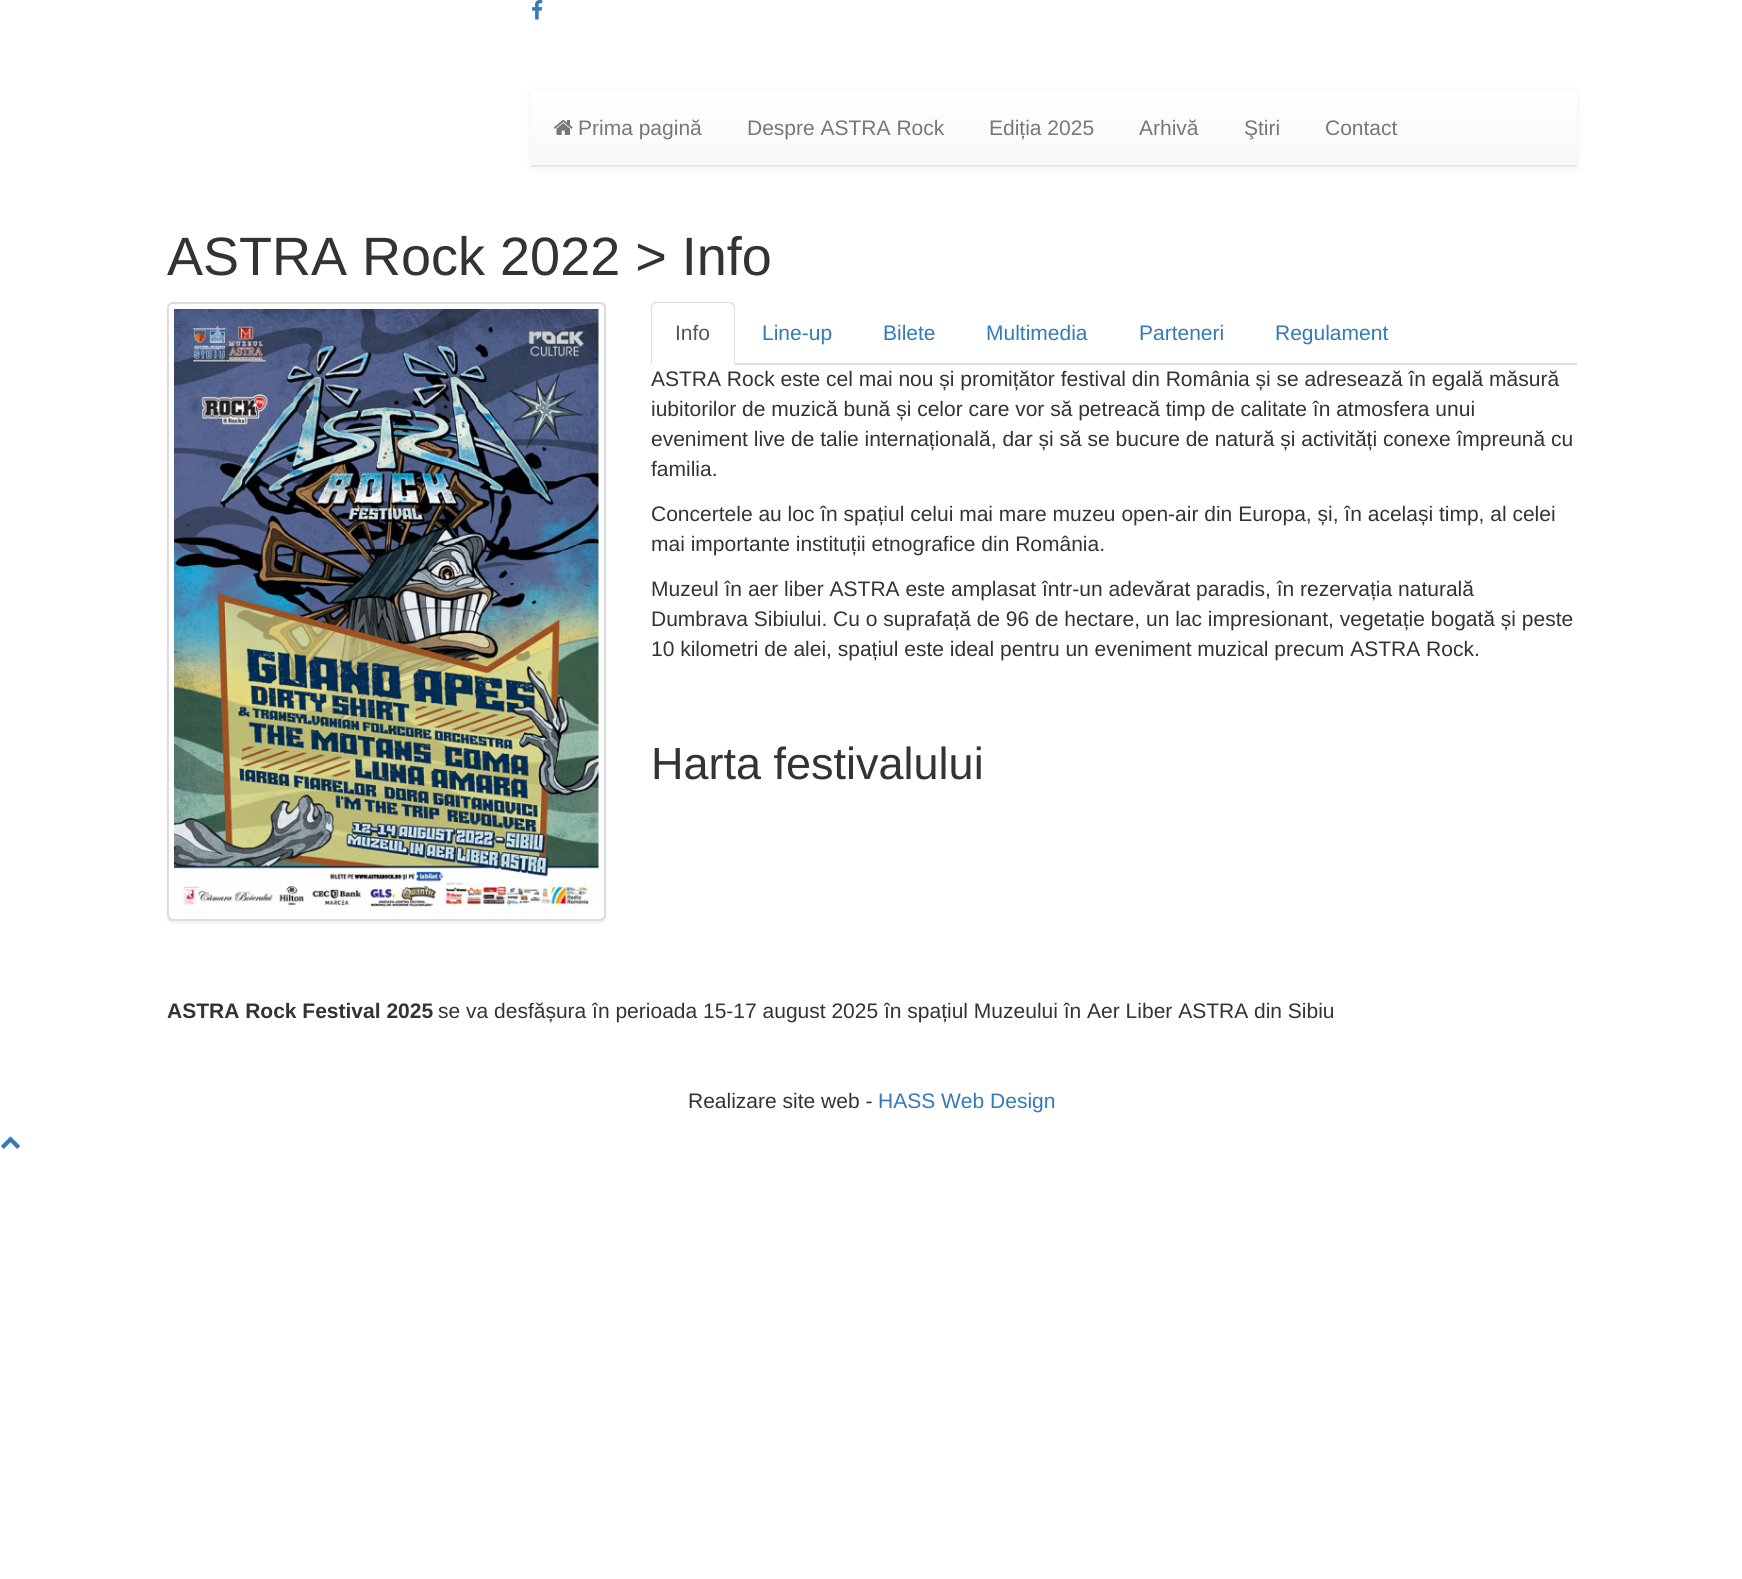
import math
import cairocffi as cairo

surface = cairo.ImageSurface(cairo.FORMAT_RGB24, 1742, 1579)
cr = cairo.Context(surface)
options = cairo.FontOptions()
options.set_hint_metrics(cairo.HINT_METRICS_OFF)
options.set_hint_style(cairo.HINT_STYLE_NONE)
cr.set_font_options(options)
cr.set_miter_limit(4)


def use_color(code):
    cr.set_source_rgb(*(v / 255 for v in bytes.fromhex(code[-6:])))


def round_rect(x, y, w, h, r):
    cr.new_sub_path()
    for i, (u, v) in enumerate([(x + w - r, y + h - r), (x + r, y + h - r), (x + r, y + r), (x + w - r, y + r)]):
        cr.arc(u, v, r, i * math.pi / 2, (i + 1) * math.pi / 2)
    cr.close_path()


def shadow(x, y, w, h, r, blur, alpha):
    cr.push_group_with_content(cairo.CONTENT_ALPHA)
    cr.set_operator(cairo.OPERATOR_SOURCE)
    for i in range(15, -16, -2):
        e = blur * i / 6
        if min(w, h) + 2 * e > 0:
            cr.set_source_rgba(0, 0, 0, alpha * math.erfc((i - 1) / 8.5) / 2)
            round_rect(x - e, y - e, w + 2 * e, h + 2 * e, max(0, min(r + e + blur * .6, min(w, h) / 2 + e)))
            cr.fill()
    cr.mask(cr.pop_group())


def picture(path, x, y, w, h):
    cr.save()
    cr.set_source_surface(cairo.ImageSurface.create_from_png(path), x, y)
    cr.rectangle(x, y, w, h)
    cr.fill()
    cr.restore()


use_color("#ffffff")
cr.paint()
picture("img1.png", 532, 0, 11, 20)
use_color("#000000")
shadow(531, 92, 1046, 76, 0, 4, 0.07)
gradient = cairo.LinearGradient(1054, 90, 1054, 165)
gradient.add_color_stop_rgba(0, 1, 1, 1, 1)
gradient.add_color_stop_rgba(1, 0.973, 0.973, 0.973, 1)
cr.set_source(gradient)
cr.rectangle(531, 90, 1046, 75)
cr.fill()
use_color("#e7e7e7")
cr.rectangle(531, 165, 1046, 2)
cr.fill()
picture("img2.png", 553, 120, 20, 15)
cr.select_font_face("Liberation Sans")
cr.set_font_size(21)
use_color("#777777")
cr.move_to(578, 135)
cr.show_text("Prima pagină")
cr.move_to(747, 135)
cr.show_text("Despre ASTRA Rock")
cr.move_to(989, 135)
cr.show_text("Ediția 2025")
cr.move_to(1139, 135)
cr.show_text("Arhivă")
cr.move_to(1244, 135)
cr.show_text("Ştiri")
cr.move_to(1325, 135)
cr.show_text("Contact")
cr.set_font_size(54)
use_color("#333333")
cr.move_to(167, 275)
cr.show_text("ASTRA Rock 2022 > Info")
use_color("#000000")
shadow(167, 303, 439, 620, 6, 1.5, 0.07)
use_color("#ffffff")
round_rect(168, 303, 437, 617, 5)
cr.fill_preserve()
use_color("#dddddd")
cr.stroke()
picture("img3.png", 174, 309, 425, 598)
cr.rectangle(735, 363, 842, 2)
cr.fill()
cr.new_path()
cr.move_to(657, 302)
cr.curve_to(656, 302, 654, 302, 653, 303)
cr.line_to(654, 304)
cr.line_to(657, 303)
cr.line_to(729, 303)
cr.line_to(732, 304)
cr.line_to(733, 303)
cr.curve_to(732, 302, 730, 302, 729, 302)
cr.close_path()
cr.fill()
cr.new_path()
cr.move_to(733, 303)
cr.curve_to(734, 304, 735, 306, 735, 308)
cr.line_to(735, 364)
cr.line_to(734, 364)
cr.line_to(734, 363)
cr.line_to(734, 307)
cr.line_to(732, 304)
cr.close_path()
cr.fill()
cr.new_path()
cr.move_to(651, 308)
cr.line_to(651, 364)
cr.line_to(652, 364)
cr.line_to(652, 363)
cr.line_to(652, 307)
cr.line_to(654, 304)
cr.line_to(653, 303)
cr.curve_to(652, 304, 651, 306, 651, 308)
cr.close_path()
cr.fill()
cr.set_font_size(21)
use_color("#555555")
cr.move_to(675, 340)
cr.show_text("Info")
use_color("#337ab7")
cr.move_to(762, 340)
cr.show_text("Line-up")
cr.move_to(883, 340)
cr.show_text("Bilete")
cr.move_to(986, 340)
cr.show_text("Multimedia")
cr.move_to(1139, 340)
cr.show_text("Parteneri")
cr.move_to(1275, 340)
cr.show_text("Regulament")
use_color("#333333")
cr.move_to(651, 386)
cr.show_text("ASTRA Rock este cel mai nou și promițător festival din România și se adresează în egală măsură")
cr.move_to(651, 416)
cr.show_text("iubitorilor de muzică bună și celor care vor să petreacă timp de calitate în atmosfera unui")
cr.move_to(651, 446)
cr.show_text("eveniment live de talie internațională, dar și să se bucure de natură și activități conexe împreună cu")
cr.move_to(651, 476)
cr.show_text("familia.")
cr.move_to(651, 521)
cr.show_text("Concertele au loc în spațiul celui mai mare muzeu open-air din Europa, și, în același timp, al celei")
cr.move_to(651, 551)
cr.show_text("mai importante instituții etnografice din România.")
cr.move_to(651, 596)
cr.show_text("Muzeul în aer liber ASTRA este amplasat într-un adevărat paradis, în rezervația naturală")
cr.move_to(651, 626)
cr.show_text("Dumbrava Sibiului. Cu o suprafață de 96 de hectare, un lac impresionant, vegetație bogată și peste")
cr.move_to(651, 656)
cr.show_text("10 kilometri de alei, spațiul este ideal pentru un eveniment muzical precum ASTRA Rock.")
cr.set_font_size(45)
cr.move_to(651, 779)
cr.show_text("Harta festivalului")
cr.select_font_face("Liberation Sans", cairo.FONT_SLANT_NORMAL, cairo.FONT_WEIGHT_BOLD)
cr.set_font_size(21)
cr.move_to(167, 1018)
cr.show_text("ASTRA Rock Festival 2025")
cr.select_font_face("Liberation Sans")
cr.move_to(438, 1018)
cr.show_text("se va desfășura în perioada 15-17 august 2025 în spațiul Muzeului în Aer Liber ASTRA din Sibiu")
cr.move_to(688, 1108)
cr.show_text("Realizare site web -")
use_color("#337ab7")
cr.move_to(878, 1108)
cr.show_text("HASS Web Design")
picture("img4.png", 1, 1136, 19, 13)
surface.write_to_png("result.png")
